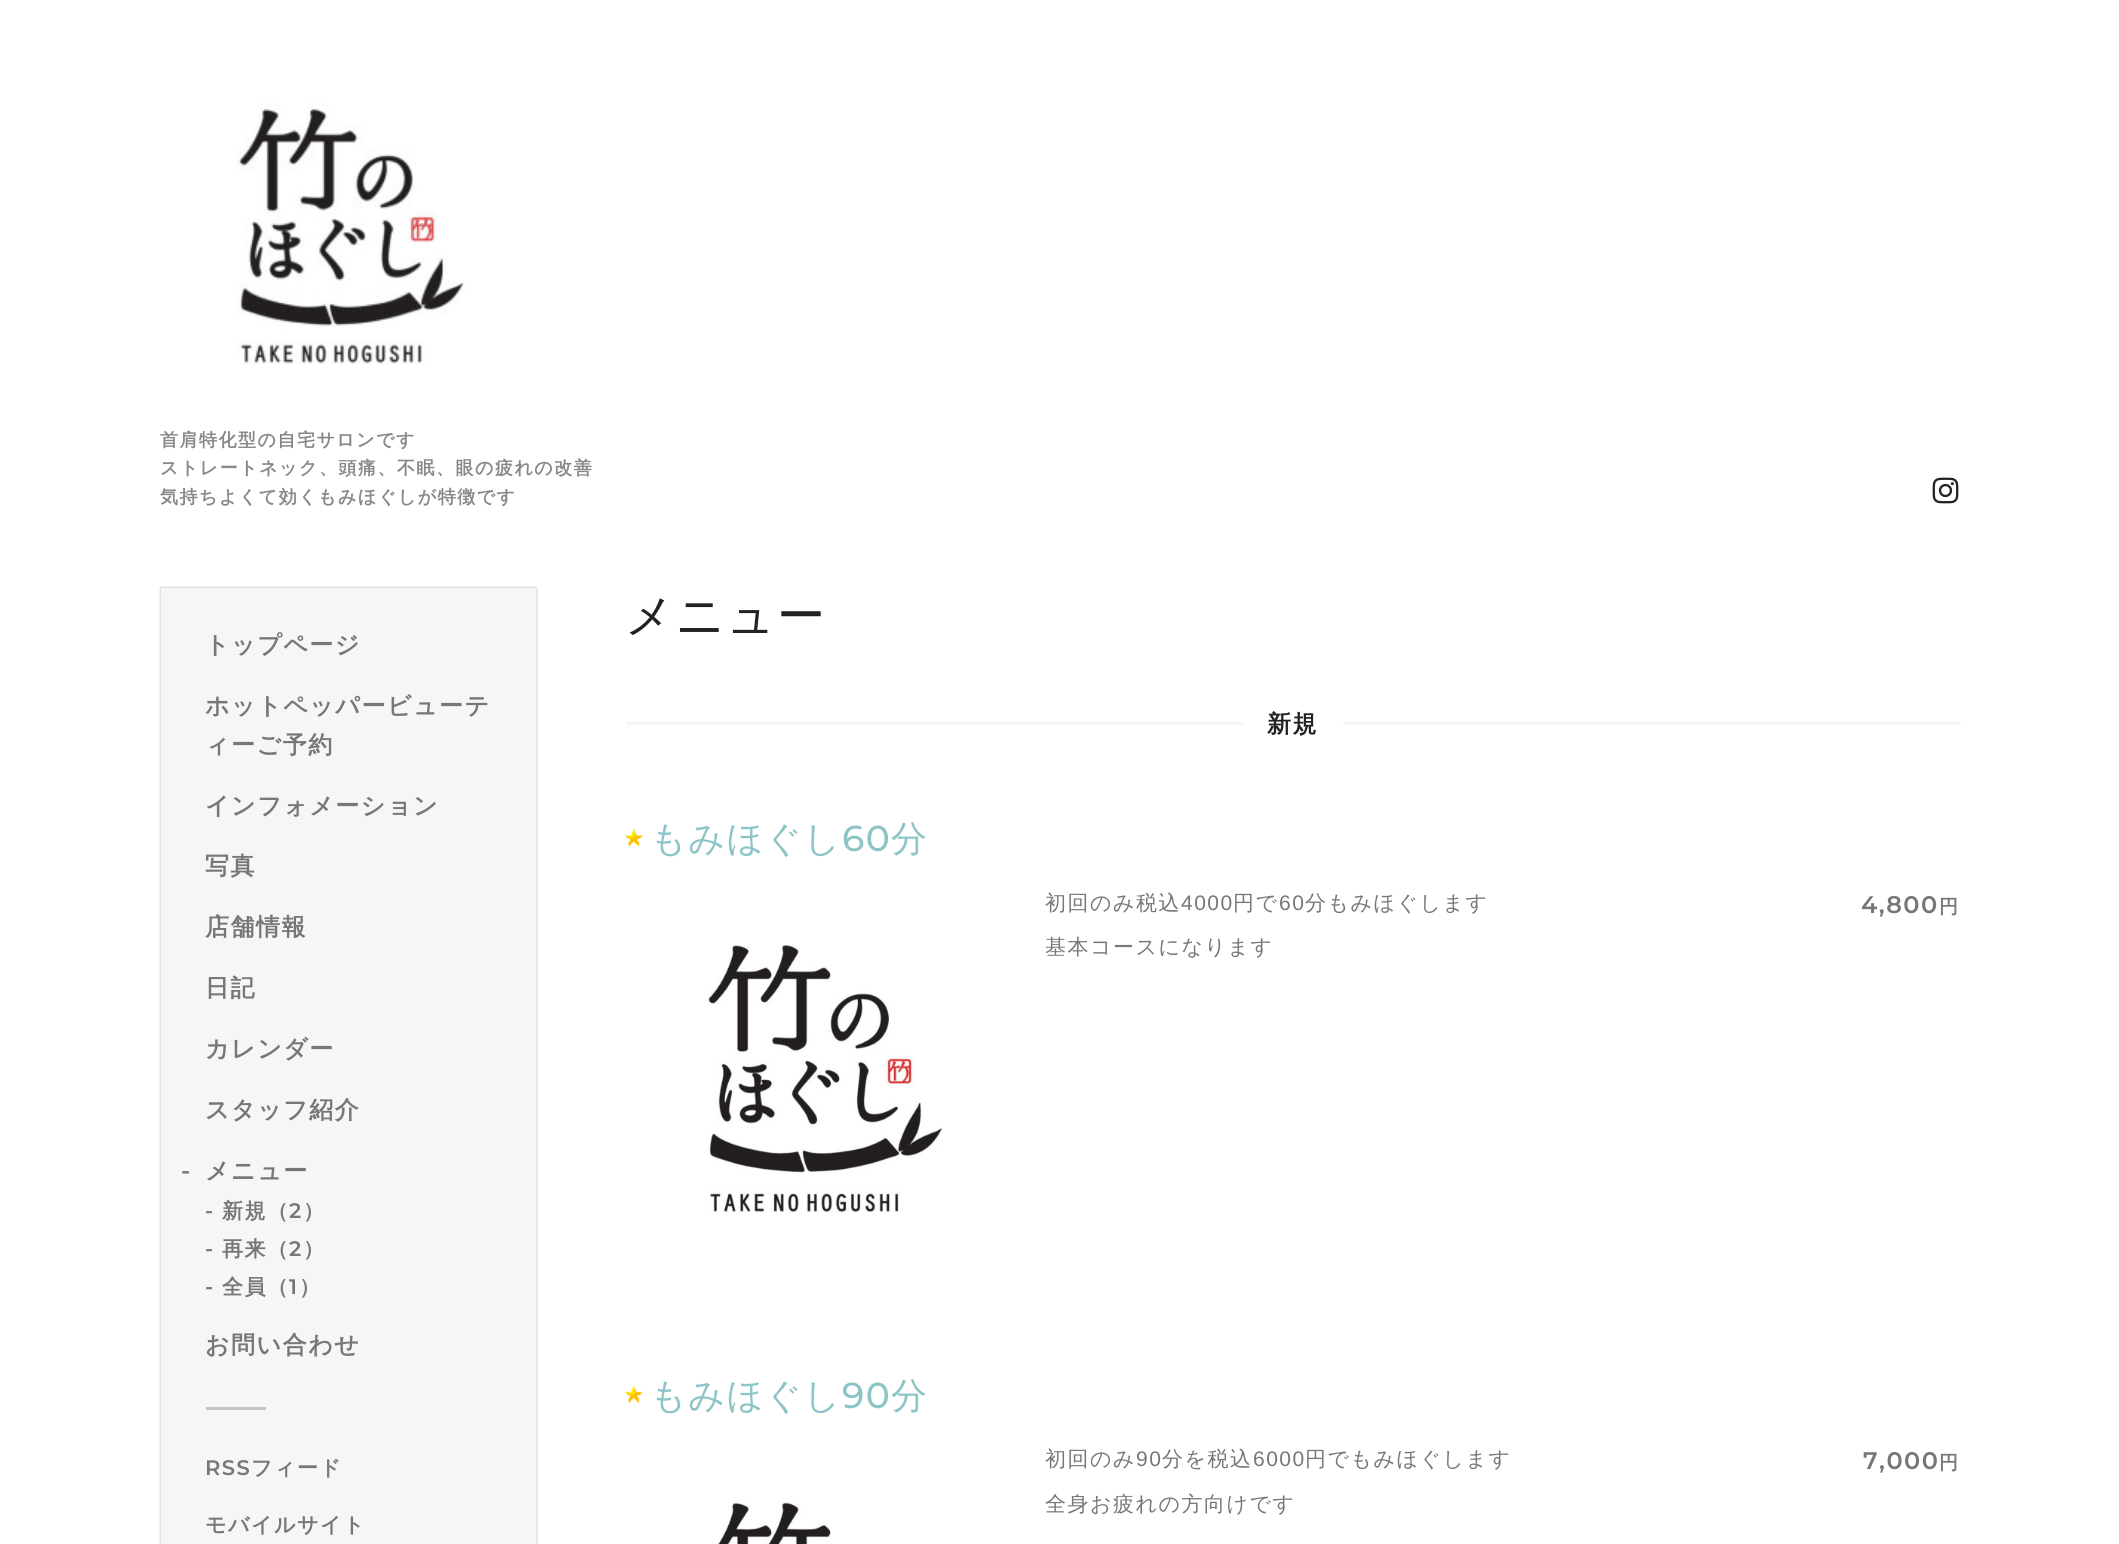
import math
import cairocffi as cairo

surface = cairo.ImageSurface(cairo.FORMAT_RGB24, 2119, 1544)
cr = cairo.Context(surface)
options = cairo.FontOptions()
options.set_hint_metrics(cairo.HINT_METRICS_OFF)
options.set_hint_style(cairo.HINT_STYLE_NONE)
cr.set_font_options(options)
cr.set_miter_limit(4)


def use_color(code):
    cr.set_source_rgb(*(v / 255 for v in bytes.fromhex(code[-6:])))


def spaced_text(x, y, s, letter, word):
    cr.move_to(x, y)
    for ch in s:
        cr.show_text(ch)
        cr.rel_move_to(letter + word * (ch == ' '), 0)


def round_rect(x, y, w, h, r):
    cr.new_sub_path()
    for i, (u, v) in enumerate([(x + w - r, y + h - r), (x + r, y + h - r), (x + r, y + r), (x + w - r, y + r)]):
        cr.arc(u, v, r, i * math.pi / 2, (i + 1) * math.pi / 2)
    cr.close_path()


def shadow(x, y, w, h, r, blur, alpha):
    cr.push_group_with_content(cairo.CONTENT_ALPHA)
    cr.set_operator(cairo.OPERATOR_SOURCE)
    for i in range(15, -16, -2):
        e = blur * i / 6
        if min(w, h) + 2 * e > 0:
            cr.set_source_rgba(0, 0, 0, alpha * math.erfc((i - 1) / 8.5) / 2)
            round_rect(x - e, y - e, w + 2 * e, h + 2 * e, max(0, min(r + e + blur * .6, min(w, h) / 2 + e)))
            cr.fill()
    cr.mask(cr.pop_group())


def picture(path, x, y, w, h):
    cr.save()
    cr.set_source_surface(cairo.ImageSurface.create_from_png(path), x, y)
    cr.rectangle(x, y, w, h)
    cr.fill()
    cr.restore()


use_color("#ffffff")
cr.paint()
picture("img1.png", 236, 102, 235, 262)
cr.select_font_face("WenQuanYi Zen Hei", cairo.FONT_SLANT_NORMAL, cairo.FONT_WEIGHT_BOLD)
cr.set_font_size(18)
use_color("#888888")
spaced_text(160, 446, "首肩特化型の自宅サロンです", 1.5, 0)
spaced_text(160, 474, "ストレートネック、頭痛、不眠、眼の疲れの改善", 1.5, 0)
spaced_text(160, 503, "気持ちよくて効くもみほぐしが特徴です", 1.5, 0)
picture("img2.png", 1932, 477, 27, 27)
use_color("#000000")
shadow(161, 588, 375, 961, 0, 1.5, 0.3)
use_color("#f6f6f6")
cr.rectangle(161, 588, 375, 956)
cr.fill()
cr.set_font_size(24)
use_color("#777777")
spaced_text(205, 653, "トップページ", 1.5, 0)
spaced_text(205, 714, "ホットペッパービューテ", 1.5, 0)
spaced_text(205, 753, "ィーご予約", 1.5, 0)
spaced_text(205, 814, "インフォメーション", 1.5, 0)
spaced_text(205, 874, "写真", 1.5, 0)
spaced_text(205, 935, "店舗情報", 1.5, 0)
spaced_text(205, 996, "日記", 1.5, 0)
spaced_text(205, 1057, "カレンダー", 1.5, 0)
spaced_text(205, 1118, "スタッフ紹介", 1.5, 0)
cr.select_font_face("Montserrat SemiBold")
spaced_text(181, 1179, "-", 1.5, 0)
cr.select_font_face("WenQuanYi Zen Hei", cairo.FONT_SLANT_NORMAL, cairo.FONT_WEIGHT_BOLD)
spaced_text(205, 1179, "メニュー", 1.5, 0)
cr.select_font_face("Montserrat SemiBold")
cr.set_font_size(21)
spaced_text(205, 1218, "-", 1.5, 0)
cr.select_font_face("WenQuanYi Zen Hei", cairo.FONT_SLANT_NORMAL, cairo.FONT_WEIGHT_BOLD)
spaced_text(222, 1218, "新規（", 1.5, 0)
cr.select_font_face("Montserrat SemiBold")
spaced_text(289, 1218, "2", 1.5, 0)
cr.select_font_face("WenQuanYi Zen Hei", cairo.FONT_SLANT_NORMAL, cairo.FONT_WEIGHT_BOLD)
spaced_text(303, 1218, "）", 1.5, 0)
cr.select_font_face("Montserrat SemiBold")
spaced_text(205, 1256, "-", 1.5, 0)
cr.select_font_face("WenQuanYi Zen Hei", cairo.FONT_SLANT_NORMAL, cairo.FONT_WEIGHT_BOLD)
spaced_text(222, 1256, "再来（", 1.5, 0)
cr.select_font_face("Montserrat SemiBold")
spaced_text(289, 1256, "2", 1.5, 0)
cr.select_font_face("WenQuanYi Zen Hei", cairo.FONT_SLANT_NORMAL, cairo.FONT_WEIGHT_BOLD)
spaced_text(303, 1256, "）", 1.5, 0)
cr.select_font_face("Montserrat SemiBold")
spaced_text(205, 1294, "-", 1.5, 0)
cr.select_font_face("WenQuanYi Zen Hei", cairo.FONT_SLANT_NORMAL, cairo.FONT_WEIGHT_BOLD)
spaced_text(222, 1294, "全員（", 1.5, 0)
cr.select_font_face("Montserrat SemiBold")
spaced_text(289, 1294, "1", 1.5, 0)
cr.select_font_face("WenQuanYi Zen Hei", cairo.FONT_SLANT_NORMAL, cairo.FONT_WEIGHT_BOLD)
spaced_text(299, 1294, "）", 1.5, 0)
cr.set_font_size(24)
spaced_text(205, 1353, "お問い合わせ", 1.5, 0)
use_color("#c5c5c5")
cr.rectangle(206, 1407, 60, 3)
cr.fill()
cr.select_font_face("Montserrat SemiBold")
cr.set_font_size(21)
use_color("#777777")
spaced_text(205, 1475, "RSS", 1.5, 0)
cr.select_font_face("WenQuanYi Zen Hei", cairo.FONT_SLANT_NORMAL, cairo.FONT_WEIGHT_BOLD)
spaced_text(251, 1475, "フィード", 1.5, 0)
spaced_text(205, 1532, "モバイルサイト", 1.5, 0)
cr.select_font_face("WenQuanYi Zen Hei Medium")
cr.set_font_size(48)
use_color("#222222")
spaced_text(625, 632, "メニュー", 1.5, 0)
use_color("#f6f6f6")
cr.rectangle(626, 722, 1335, 3)
cr.fill()
use_color("#ffffff")
cr.rectangle(1244, 722, 99, 3)
cr.fill()
cr.select_font_face("WenQuanYi Zen Hei", cairo.FONT_SLANT_NORMAL, cairo.FONT_WEIGHT_BOLD)
cr.set_font_size(24)
use_color("#222222")
spaced_text(1267, 732, "新規", 1.5, 0)
picture("img3.png", 625, 829, 18, 17)
cr.select_font_face("WenQuanYi Zen Hei Medium")
cr.set_font_size(36)
use_color("#8dc5c6")
spaced_text(650, 851, "もみほぐし", 1.5, 0)
cr.select_font_face("Montserrat Medium")
spaced_text(842, 851, "60", 1.5, 0)
cr.select_font_face("WenQuanYi Zen Hei Medium")
spaced_text(891, 851, "分", 1.5, 0)
cr.set_font_size(21)
use_color("#777777")
spaced_text(1045, 910, "初回のみ税込", 1.5, 0)
cr.select_font_face("Liberation Sans")
spaced_text(1181, 910, "4000", 1.5, 0)
cr.select_font_face("WenQuanYi Zen Hei Medium")
spaced_text(1233, 910, "円で", 1.5, 0)
cr.select_font_face("Liberation Sans")
spaced_text(1279, 910, "60", 1.5, 0)
cr.select_font_face("WenQuanYi Zen Hei Medium")
spaced_text(1305, 910, "分もみほぐします", 1.5, 0)
cr.save()
cr.rectangle(1046, 885, 444, 78)
cr.clip()
spaced_text(1045, 954, "基本コースになります", 1.5, 0)
cr.restore()
cr.select_font_face("Montserrat SemiBold")
cr.set_font_size(24)
spaced_text(1861, 913, "4,800", 1.5, 0)
cr.select_font_face("WenQuanYi Zen Hei", cairo.FONT_SLANT_NORMAL, cairo.FONT_WEIGHT_BOLD)
cr.set_font_size(19)
spaced_text(1939, 913, "円", 1.5, 0)
picture("img4.png", 707, 945, 237, 268)
picture("img5.png", 625, 1385, 18, 18)
cr.select_font_face("WenQuanYi Zen Hei Medium")
cr.set_font_size(36)
use_color("#8dc5c6")
spaced_text(650, 1408, "もみほぐし", 1.5, 0)
cr.select_font_face("Montserrat Medium")
spaced_text(842, 1408, "90", 1.5, 0)
cr.select_font_face("WenQuanYi Zen Hei Medium")
spaced_text(891, 1408, "分", 1.5, 0)
cr.set_font_size(21)
use_color("#777777")
spaced_text(1045, 1466, "初回のみ", 1.5, 0)
cr.select_font_face("Liberation Sans")
spaced_text(1136, 1466, "90", 1.5, 0)
cr.select_font_face("WenQuanYi Zen Hei Medium")
spaced_text(1162, 1466, "分を税込", 1.5, 0)
cr.select_font_face("Liberation Sans")
spaced_text(1253, 1466, "6000", 1.5, 0)
cr.select_font_face("WenQuanYi Zen Hei Medium")
spaced_text(1305, 1466, "円でもみほぐします", 1.5, 0)
spaced_text(1045, 1511, "全身お疲れの方向けです", 1.5, 0)
cr.select_font_face("Montserrat SemiBold")
cr.set_font_size(24)
spaced_text(1863, 1469, "7,000", 1.5, 0)
cr.select_font_face("WenQuanYi Zen Hei", cairo.FONT_SLANT_NORMAL, cairo.FONT_WEIGHT_BOLD)
cr.set_font_size(19)
spaced_text(1939, 1469, "円", 1.5, 0)
picture("img6.png", 718, 1502, 113, 42)
surface.write_to_png("result.png")
